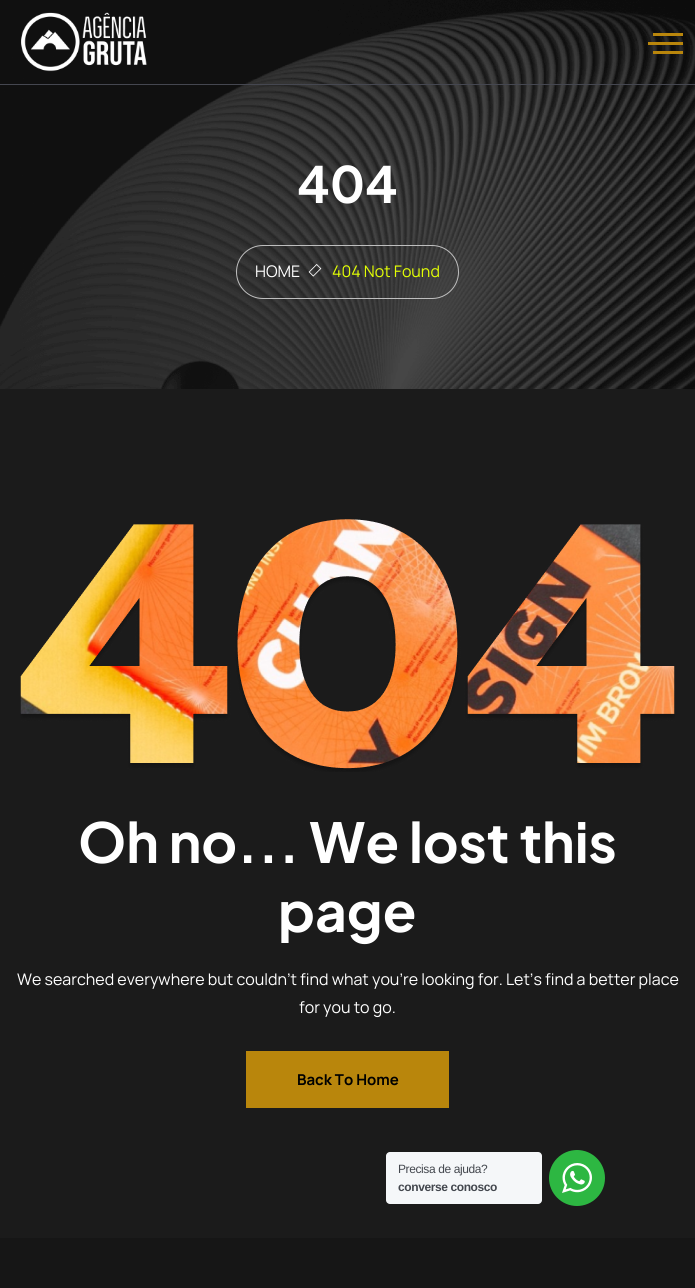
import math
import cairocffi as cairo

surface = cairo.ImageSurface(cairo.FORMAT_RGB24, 695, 1288)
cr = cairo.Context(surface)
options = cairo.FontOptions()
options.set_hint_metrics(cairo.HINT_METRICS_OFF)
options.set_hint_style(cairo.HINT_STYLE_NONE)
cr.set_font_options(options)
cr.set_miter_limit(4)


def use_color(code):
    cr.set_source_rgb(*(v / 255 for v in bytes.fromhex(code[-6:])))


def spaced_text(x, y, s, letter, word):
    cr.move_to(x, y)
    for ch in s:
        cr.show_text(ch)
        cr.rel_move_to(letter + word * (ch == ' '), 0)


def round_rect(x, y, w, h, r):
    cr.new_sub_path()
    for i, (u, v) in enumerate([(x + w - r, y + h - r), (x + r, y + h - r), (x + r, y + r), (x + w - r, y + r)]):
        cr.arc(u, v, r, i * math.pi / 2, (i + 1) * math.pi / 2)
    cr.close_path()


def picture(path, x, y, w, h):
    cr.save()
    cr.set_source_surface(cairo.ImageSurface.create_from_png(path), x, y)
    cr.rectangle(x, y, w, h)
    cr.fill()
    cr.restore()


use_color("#1b1b1b")
cr.paint()
picture("img2.png", 0, 0, 695, 389)
use_color("#454750")
cr.rectangle(0, 84, 695, 1)
cr.fill()
picture("img1.png", 21, 12, 126, 60)
use_color("#b9860c")
cr.rectangle(653, 33, 30, 3)
cr.fill()
cr.rectangle(648, 42, 35, 3)
cr.fill()
cr.rectangle(653, 51, 30, 3)
cr.fill()
cr.select_font_face("Plus Jakarta Sans", cairo.FONT_SLANT_NORMAL, cairo.FONT_WEIGHT_BOLD)
cr.set_font_size(50)
use_color("#ffffff")
cr.move_to(297, 203)
cr.show_text("404")
round_rect(236.5, 245.5, 222, 53, 26.5)
use_color("#bebebe")
cr.set_line_width(1)
cr.stroke()
cr.select_font_face("Manrope")
cr.set_font_size(16)
use_color("#ffffff")
cr.move_to(255, 277)
cr.show_text("HOME")
picture("img3.png", 308, 264, 14, 13)
use_color("#e3ff04")
cr.move_to(332, 277)
cr.show_text("404 Not Found")
picture("img4.png", 20, 519, 655, 253)
cr.select_font_face("Plus Jakarta Sans", cairo.FONT_SLANT_NORMAL, cairo.FONT_WEIGHT_BOLD)
cr.set_font_size(55)
use_color("#ffffff")
cr.move_to(78, 863)
cr.show_text("Oh no... We lost this")
cr.move_to(278, 932)
cr.show_text("page")
cr.select_font_face("Manrope")
cr.set_font_size(16)
cr.move_to(17, 985)
cr.show_text("We searched everywhere but couldn’t find what you’re looking for. Let’s find a better place")
cr.move_to(299, 1013)
cr.show_text("for you to go.")
use_color("#b9860c")
cr.rectangle(246, 1051, 203, 57)
cr.fill()
cr.select_font_face("Manrope", cairo.FONT_SLANT_NORMAL, cairo.FONT_WEIGHT_BOLD)
cr.set_font_size(15)
use_color("#000000")
cr.move_to(297, 1085)
cr.show_text("Back To Home")
use_color("#161616")
cr.rectangle(0, 1238, 695, 50)
cr.fill()
use_color("#f5f7f9")
round_rect(386, 1152, 156, 52, 4)
cr.fill()
cr.select_font_face("Liberation Sans")
cr.set_font_size(12)
use_color("#43474e")
spaced_text(398, 1173, "Precisa de ajuda?", -0.4, 0)
cr.select_font_face("Liberation Sans", cairo.FONT_SLANT_NORMAL, cairo.FONT_WEIGHT_BOLD)
spaced_text(398, 1191, "converse conosco", -0.4, 0)
use_color("#2db742")
cr.new_path()
cr.arc(577, 1178, 28, 0, 2 * math.pi)
cr.fill()
picture("img5.png", 562, 1163, 30, 30)
surface.write_to_png("result.png")
